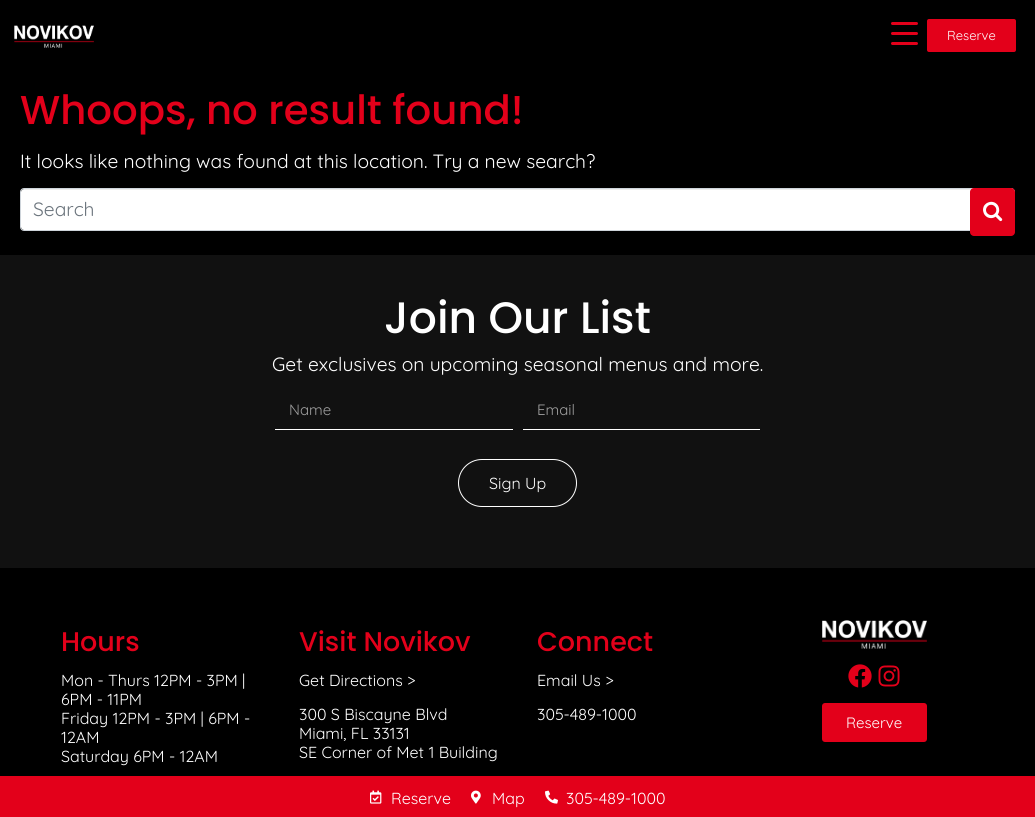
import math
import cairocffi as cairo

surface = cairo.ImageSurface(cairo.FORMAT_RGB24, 1035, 817)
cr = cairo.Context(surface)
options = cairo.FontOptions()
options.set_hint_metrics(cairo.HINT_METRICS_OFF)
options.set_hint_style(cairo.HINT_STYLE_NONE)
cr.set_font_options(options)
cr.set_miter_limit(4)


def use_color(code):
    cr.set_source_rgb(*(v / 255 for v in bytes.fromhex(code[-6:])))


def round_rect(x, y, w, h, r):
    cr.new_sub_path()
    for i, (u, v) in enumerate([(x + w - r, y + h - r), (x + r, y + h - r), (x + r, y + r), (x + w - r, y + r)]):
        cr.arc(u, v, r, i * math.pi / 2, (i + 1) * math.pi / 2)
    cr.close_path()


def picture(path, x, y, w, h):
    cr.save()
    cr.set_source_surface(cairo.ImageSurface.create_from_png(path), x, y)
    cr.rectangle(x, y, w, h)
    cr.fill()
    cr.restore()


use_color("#000000")
cr.paint()
picture("img1.png", 14, 25, 80, 23)
use_color("#e3001a")
round_rect(891, 32, 27, 3, 1.5)
cr.fill()
round_rect(891, 22, 27, 3, 1.5)
cr.fill()
round_rect(891, 42, 27, 3, 1.5)
cr.fill()
round_rect(927, 19, 89, 33, 2)
cr.fill()
cr.select_font_face("Quicksand")
cr.set_font_size(13)
use_color("#ffffff")
cr.move_to(947, 40)
cr.show_text("Reserve")
cr.select_font_face("Poppins Medium")
cr.set_font_size(40.25)
use_color("#e3001a")
cr.move_to(20, 124)
cr.show_text("Whoops, no result found!")
cr.select_font_face("Quicksand")
cr.set_font_size(19.2)
use_color("#ffffff")
cr.move_to(20, 168)
cr.show_text("It looks like nothing was found at this location. Try a new search?")
round_rect(21, 189, 993, 41, 3)
cr.fill()
cr.set_source_rgba(0, 0, 0, 0.07)
cr.new_path()
cr.move_to(24, 190)
cr.line_to(1011, 190)
cr.curve_to(1013, 190, 1014, 191, 1014, 193)
cr.curve_to(1014, 191, 1013, 189, 1011, 189)
cr.line_to(24, 189)
cr.curve_to(22, 189, 21, 191, 21, 193)
cr.curve_to(21, 191, 22, 190, 24, 190)
cr.close_path()
cr.fill()
round_rect(20.5, 188.5, 994, 42, 3.5)
use_color("#ced4da")
cr.set_line_width(1)
cr.stroke()
use_color("#6c757d")
cr.move_to(33, 216)
cr.show_text("Search")
use_color("#e3001a")
round_rect(970, 188, 45, 48, 4)
cr.fill()
picture("img2.png", 983, 201, 20, 21)
use_color("#111111")
cr.rectangle(0, 255, 1035, 313)
cr.fill()
cr.select_font_face("Poppins Medium")
cr.set_font_size(44)
use_color("#ffffff")
cr.move_to(384, 333)
cr.show_text("Join Our List")
cr.select_font_face("Quicksand")
cr.set_font_size(19.2)
cr.move_to(272, 371)
cr.show_text("Get exclusives on upcoming seasonal menus and more.")
cr.rectangle(275, 429, 238, 1)
cr.fill()
cr.set_font_size(15)
use_color("#a0a0a0")
cr.move_to(289, 415)
cr.show_text("Name")
use_color("#ffffff")
cr.rectangle(523, 429, 237, 1)
cr.fill()
use_color("#a0a0a0")
cr.move_to(537, 415)
cr.show_text("Email")
round_rect(458.5, 459.5, 118, 47, 23.5)
use_color("#ffffff")
cr.stroke()
cr.set_font_size(16)
cr.move_to(489, 489)
cr.show_text("Sign Up")
cr.select_font_face("Poppins Medium")
cr.set_font_size(27)
use_color("#e3001a")
cr.move_to(61, 651)
cr.show_text("Hours")
cr.select_font_face("Quicksand")
cr.set_font_size(16)
use_color("#ffffff")
cr.move_to(61, 686)
cr.show_text("Mon - Thurs 12PM - 3PM |")
cr.move_to(61, 705)
cr.show_text("6PM - 11PM")
cr.move_to(61, 724)
cr.show_text("Friday 12PM - 3PM | 6PM -")
cr.move_to(61, 743)
cr.show_text("12AM")
cr.move_to(61, 762)
cr.show_text("Saturday 6PM - 12AM")
cr.select_font_face("Poppins Medium")
cr.set_font_size(27)
use_color("#e3001a")
cr.move_to(299, 651)
cr.show_text("Visit Novikov")
cr.select_font_face("Quicksand")
cr.set_font_size(16)
use_color("#ffffff")
cr.move_to(299, 686)
cr.show_text("Get Directions >")
cr.move_to(299, 720)
cr.show_text("300 S Biscayne Blvd")
cr.move_to(299, 739)
cr.show_text("Miami, FL 33131")
cr.move_to(299, 758)
cr.show_text("SE Corner of Met 1 Building")
cr.select_font_face("Poppins Medium")
cr.set_font_size(27)
use_color("#e3001a")
cr.move_to(537, 651)
cr.show_text("Connect")
cr.select_font_face("Quicksand")
cr.set_font_size(16)
use_color("#ffffff")
cr.move_to(537, 686)
cr.show_text("Email Us >")
cr.move_to(537, 720)
cr.show_text("305-489-1000")
picture("img3.png", 822, 620, 105, 29)
picture("img4.png", 848, 664, 24, 24)
picture("img5.png", 878, 665, 22, 22)
use_color("#e3001a")
round_rect(822, 703, 105, 39, 3)
cr.fill()
cr.set_font_size(15)
use_color("#ffffff")
cr.move_to(846, 728)
cr.show_text("Reserve")
use_color("#e3001a")
cr.rectangle(0, 776, 1035, 41)
cr.fill()
picture("img6.png", 370, 790, 12, 14)
cr.set_font_size(16)
use_color("#ffffff")
cr.move_to(391, 804)
cr.show_text("Reserve")
picture("img7.png", 471, 790, 10, 14)
cr.move_to(492, 804)
cr.show_text("Map")
picture("img8.png", 545, 790, 13, 14)
cr.move_to(566, 804)
cr.show_text("305-489-1000")
surface.write_to_png("result.png")
